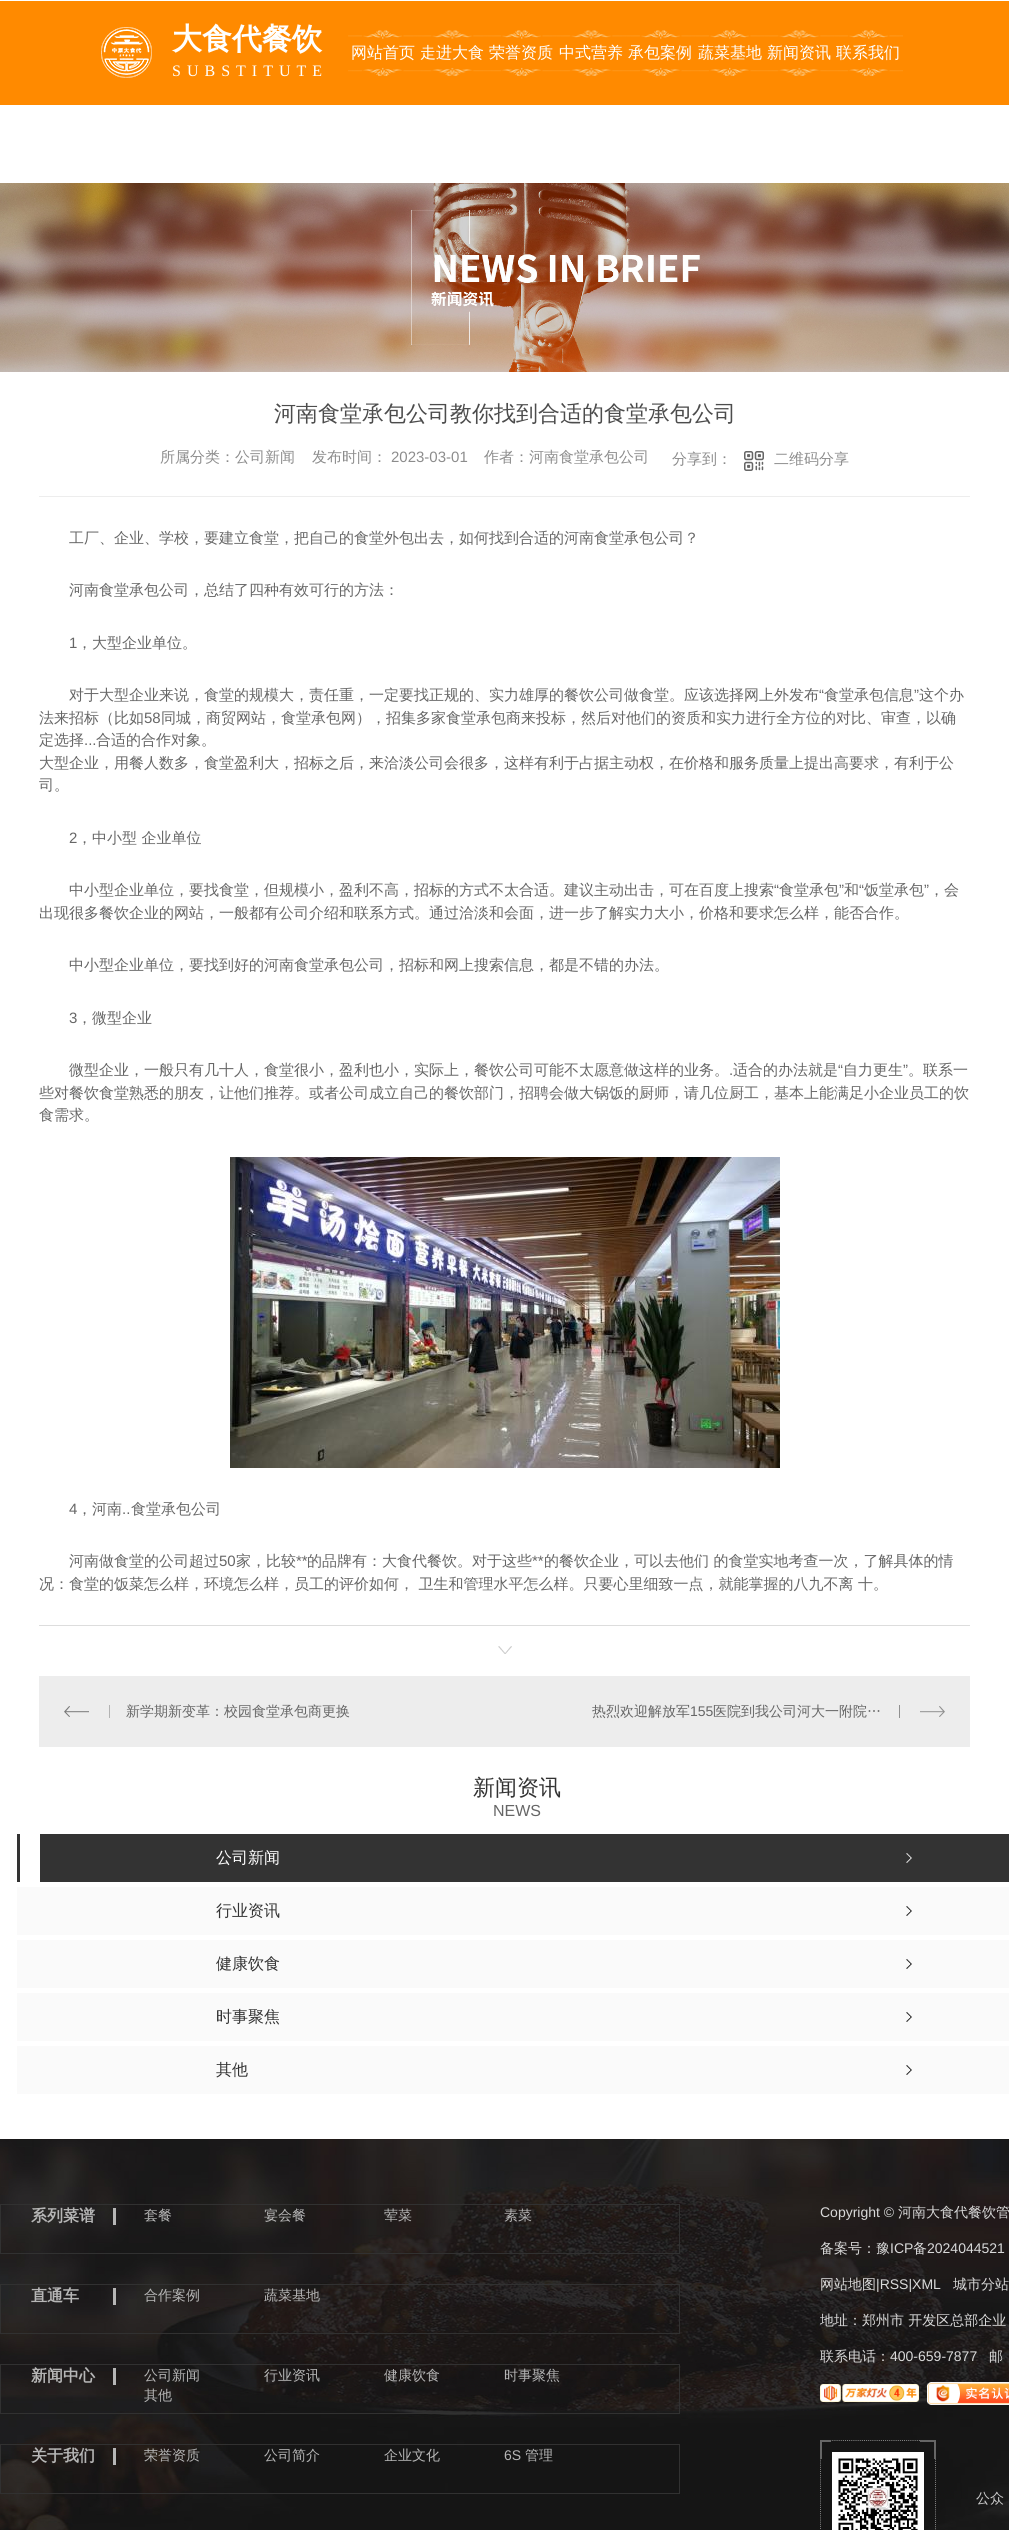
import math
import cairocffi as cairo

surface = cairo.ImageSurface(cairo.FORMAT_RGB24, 1009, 2530)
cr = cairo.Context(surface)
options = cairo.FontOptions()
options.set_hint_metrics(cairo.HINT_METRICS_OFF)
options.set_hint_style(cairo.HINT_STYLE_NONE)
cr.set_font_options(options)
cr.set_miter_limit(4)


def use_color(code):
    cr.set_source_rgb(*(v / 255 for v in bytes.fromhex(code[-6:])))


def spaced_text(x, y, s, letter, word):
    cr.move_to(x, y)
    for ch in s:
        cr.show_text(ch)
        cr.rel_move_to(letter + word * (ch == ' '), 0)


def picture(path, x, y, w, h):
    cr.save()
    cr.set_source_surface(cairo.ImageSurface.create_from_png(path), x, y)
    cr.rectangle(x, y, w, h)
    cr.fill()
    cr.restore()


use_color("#ffffff")
cr.paint()
use_color("#ff8a00")
cr.rectangle(0, 1, 1009, 104)
cr.fill()
picture("img1.png", 101, 27, 51, 51)
cr.select_font_face("WenQuanYi Zen Hei", cairo.FONT_SLANT_NORMAL, cairo.FONT_WEIGHT_BOLD)
cr.set_font_size(30)
use_color("#ffffff")
cr.move_to(172, 49)
cr.show_text("大食代餐饮")
cr.select_font_face("Liberation Serif")
cr.set_font_size(16)
spaced_text(172, 76, "SUBSTITUTE", 6, 0)
picture("img2.png", 348, 30, 69, 46)
cr.select_font_face("WenQuanYi Zen Hei Medium")
cr.move_to(351, 58)
cr.show_text("网站首页")
picture("img3.png", 417, 30, 70, 46)
cr.move_to(420, 58)
cr.show_text("走进大食")
picture("img2.png", 487, 30, 69, 46)
cr.move_to(489, 58)
cr.show_text("荣誉资质")
picture("img3.png", 556, 30, 70, 46)
cr.move_to(559, 58)
cr.show_text("中式营养")
picture("img2.png", 626, 30, 69, 46)
cr.move_to(628, 58)
cr.show_text("承包案例")
picture("img2.png", 695, 30, 69, 46)
cr.move_to(698, 58)
cr.show_text("蔬菜基地")
picture("img3.png", 764, 30, 70, 46)
cr.move_to(767, 58)
cr.show_text("新闻资讯")
picture("img2.png", 834, 30, 69, 46)
cr.move_to(836, 58)
cr.show_text("联系我们")
picture("img4.png", 0, 183, 1009, 189)
cr.set_font_size(22)
use_color("#4c4c4c")
cr.move_to(274, 421)
cr.show_text("河南食堂承包公司教你找到合适的食堂承包公司")
cr.set_font_size(15)
use_color("#8c8c8c")
cr.move_to(160, 462)
cr.show_text("所属分类：公司新闻")
cr.move_to(312, 462)
cr.show_text("发布时间：")
cr.select_font_face("Liberation Sans")
cr.move_to(391, 462)
cr.show_text("2023-03-01")
cr.select_font_face("WenQuanYi Zen Hei Medium")
cr.move_to(484, 462)
cr.show_text("作者：河南食堂承包公司")
cr.move_to(672, 464)
cr.show_text("分享到：")
picture("img5.png", 744, 451, 20, 20)
cr.move_to(774, 464)
cr.show_text("二维码分享")
use_color("#ededed")
cr.rectangle(39, 496, 931, 1)
cr.fill()
use_color("#dddddd")
cr.rectangle(39, 1625, 931, 1)
cr.fill()
use_color("#666666")
cr.move_to(69, 543)
cr.show_text("工厂、企业、学校，要建立食堂，把自己的食堂外包出去，如何找到合适的河南食堂承包公司？")
cr.move_to(69, 595)
cr.show_text("河南食堂承包公司，总结了四种有效可行的方法：")
cr.select_font_face("Liberation Sans")
cr.move_to(69, 648)
cr.show_text("1")
cr.select_font_face("WenQuanYi Zen Hei Medium")
cr.move_to(77, 648)
cr.show_text("，大型企业单位。")
cr.move_to(69, 700)
cr.show_text("对于大型企业来说，食堂的规模大，责任重，一定要找正规的、实力雄厚的餐饮公司做食堂。应该选择网上外发布")
cr.select_font_face("Liberation Sans")
cr.move_to(819, 700)
cr.show_text("“")
cr.select_font_face("WenQuanYi Zen Hei Medium")
cr.move_to(824, 700)
cr.show_text("食堂承包信息")
cr.select_font_face("Liberation Sans")
cr.move_to(914, 700)
cr.show_text("”")
cr.select_font_face("WenQuanYi Zen Hei Medium")
cr.move_to(919, 700)
cr.show_text("这个办")
cr.move_to(39, 723)
cr.show_text("法来招标（比如")
cr.select_font_face("Liberation Sans")
cr.move_to(144, 723)
cr.show_text("58")
cr.select_font_face("WenQuanYi Zen Hei Medium")
cr.move_to(161, 723)
cr.show_text("同城，商贸网站，食堂承包网），招集多家食堂承包商来投标，然后对他们的资质和实力进行全方位的对比、审查，以确")
cr.move_to(39, 745)
cr.show_text("定选择")
cr.select_font_face("Liberation Sans")
cr.move_to(84, 745)
cr.show_text("...")
cr.select_font_face("WenQuanYi Zen Hei Medium")
cr.move_to(96, 745)
cr.show_text("合适的合作对象。")
cr.move_to(39, 768)
cr.show_text("大型企业，用餐人数多，食堂盈利大，招标之后，来洽淡公司会很多，这样有利于占据主动权，在价格和服务质量上提出高要求，有利于公")
cr.move_to(39, 790)
cr.show_text("司。")
cr.select_font_face("Liberation Sans")
cr.move_to(69, 843)
cr.show_text("2")
cr.select_font_face("WenQuanYi Zen Hei Medium")
cr.move_to(77, 843)
cr.show_text("，中小型 企业单位")
cr.move_to(69, 895)
cr.show_text("中小型企业单位，要找食堂，但规模小，盈利不高，招标的方式不太合适。建议主动出击，可在百度上搜索")
cr.select_font_face("Liberation Sans")
cr.move_to(774, 895)
cr.show_text("“")
cr.select_font_face("WenQuanYi Zen Hei Medium")
cr.move_to(779, 895)
cr.show_text("食堂承包")
cr.select_font_face("Liberation Sans")
cr.move_to(839, 895)
cr.show_text("”")
cr.select_font_face("WenQuanYi Zen Hei Medium")
cr.move_to(844, 895)
cr.show_text("和")
cr.select_font_face("Liberation Sans")
cr.move_to(859, 895)
cr.show_text("“")
cr.select_font_face("WenQuanYi Zen Hei Medium")
cr.move_to(864, 895)
cr.show_text("饭堂承包")
cr.select_font_face("Liberation Sans")
cr.move_to(924, 895)
cr.show_text("”")
cr.select_font_face("WenQuanYi Zen Hei Medium")
cr.move_to(929, 895)
cr.show_text("，会")
cr.move_to(39, 918)
cr.show_text("出现很多餐饮企业的网站，一般都有公司介绍和联系方式。通过洽淡和会面，进一步了解实力大小，价格和要求怎么样，能否合作。")
cr.move_to(69, 970)
cr.show_text("中小型企业单位，要找到好的河南食堂承包公司，招标和网上搜索信息，都是不错的办法。")
cr.select_font_face("Liberation Sans")
cr.move_to(69, 1023)
cr.show_text("3")
cr.select_font_face("WenQuanYi Zen Hei Medium")
cr.move_to(77, 1023)
cr.show_text("，微型企业")
cr.move_to(69, 1075)
cr.show_text("微型企业，一般只有几十人，食堂很小，盈利也小，实际上，餐饮公司可能不太愿意做这样的业务。")
cr.move_to(733, 1075)
cr.show_text("适合的办法就是")
cr.select_font_face("Liberation Sans")
cr.move_to(838, 1075)
cr.show_text("“")
cr.select_font_face("WenQuanYi Zen Hei Medium")
cr.move_to(843, 1075)
cr.show_text("自力更生")
cr.select_font_face("Liberation Sans")
cr.move_to(903, 1075)
cr.show_text("”")
cr.select_font_face("WenQuanYi Zen Hei Medium")
cr.move_to(908, 1075)
cr.show_text("。联系一")
cr.select_font_face("Liberation Sans")
cr.move_to(729, 1075)
cr.show_text(".")
cr.select_font_face("WenQuanYi Zen Hei Medium")
cr.move_to(39, 1098)
cr.show_text("些对餐饮食堂熟悉的朋友，让他们推荐。或者公司成立自己的餐饮部门，招聘会做大锅饭的厨师，请几位厨工，基本上能满足小企业员工的饮")
cr.move_to(39, 1120)
cr.show_text("食需求。")
picture("img6.png", 230, 1157, 550, 311)
cr.select_font_face("Liberation Sans")
cr.move_to(69, 1514)
cr.show_text("4")
cr.select_font_face("WenQuanYi Zen Hei Medium")
cr.move_to(77, 1514)
cr.show_text("，河南")
cr.select_font_face("Liberation Sans")
cr.move_to(122, 1514)
cr.show_text("..")
cr.select_font_face("WenQuanYi Zen Hei Medium")
cr.move_to(131, 1514)
cr.show_text("食堂承包公司")
cr.move_to(69, 1566)
cr.show_text("河南做食堂的公司超过")
cr.select_font_face("Liberation Sans")
cr.move_to(219, 1566)
cr.show_text("50")
cr.select_font_face("WenQuanYi Zen Hei Medium")
cr.move_to(236, 1566)
cr.show_text("家，比较")
cr.select_font_face("Liberation Sans")
cr.move_to(296, 1566)
cr.show_text("**")
cr.select_font_face("WenQuanYi Zen Hei Medium")
cr.move_to(307, 1566)
cr.show_text("的品牌有：大食代餐饮。对于这些")
cr.select_font_face("Liberation Sans")
cr.move_to(532, 1566)
cr.show_text("**")
cr.select_font_face("WenQuanYi Zen Hei Medium")
cr.move_to(544, 1566)
cr.show_text("的餐饮企业，可以去他们 的食堂实地考查一次，了解具体的情")
cr.move_to(39, 1589)
cr.show_text("况：食堂的饭菜怎么样，环境怎么样，员工的评价如何， 卫生和管理水平怎么样。只要心里细致一点，就能掌握的八九不离 十。")
picture("img7.png", 498, 1646, 14, 8)
use_color("#ededed")
cr.rectangle(39, 1676, 931, 71)
cr.fill()
picture("img8.png", 64, 1705, 46, 13)
cr.set_font_size(14)
use_color("#666666")
cr.move_to(126, 1716)
cr.show_text("新学期新变革：校园食堂承包商更换")
picture("img9.png", 899, 1705, 46, 13)
cr.move_to(592, 1716)
cr.show_text("热烈欢迎解放军")
cr.select_font_face("Liberation Sans")
cr.move_to(690, 1716)
cr.show_text("155")
cr.select_font_face("WenQuanYi Zen Hei Medium")
cr.move_to(713, 1716)
cr.show_text("医院到我公司河大一附院…")
cr.set_font_size(22)
use_color("#333333")
cr.move_to(473, 1795)
cr.show_text("新闻资讯")
cr.select_font_face("Liberation Sans")
cr.set_font_size(16)
use_color("#666666")
cr.move_to(493, 1816)
cr.show_text("NEWS")
use_color("#333333")
cr.rectangle(17, 1834, 992, 48)
cr.fill()
use_color("#ffffff")
cr.rectangle(20, 1834, 20, 48)
cr.fill()
picture("img10.png", 906, 1853, 6, 10)
cr.select_font_face("WenQuanYi Zen Hei Medium")
cr.move_to(216, 1863)
cr.show_text("公司新闻")
use_color("#fafafa")
cr.rectangle(17, 1887, 992, 48)
cr.fill()
picture("img11.png", 906, 1906, 6, 10)
use_color("#333333")
cr.move_to(216, 1916)
cr.show_text("行业资讯")
use_color("#fafafa")
cr.rectangle(17, 1940, 992, 48)
cr.fill()
picture("img11.png", 906, 1959, 6, 10)
use_color("#333333")
cr.move_to(216, 1969)
cr.show_text("健康饮食")
use_color("#fafafa")
cr.rectangle(17, 1993, 992, 48)
cr.fill()
picture("img11.png", 906, 2012, 6, 10)
use_color("#333333")
cr.move_to(216, 2022)
cr.show_text("时事聚焦")
use_color("#fafafa")
cr.rectangle(17, 2046, 992, 48)
cr.fill()
picture("img11.png", 906, 2065, 6, 10)
use_color("#333333")
cr.move_to(216, 2075)
cr.show_text("其他")
picture("img12.png", 0, 2139, 1009, 391)
cr.rectangle(0.5, 2204.5, 679, 49)
use_color("#313131")
cr.set_line_width(1)
cr.stroke()
use_color("#b6b6b6")
cr.rectangle(113, 2208, 3, 17)
cr.fill()
cr.select_font_face("WenQuanYi Zen Hei", cairo.FONT_SLANT_NORMAL, cairo.FONT_WEIGHT_BOLD)
cr.move_to(31, 2221)
cr.show_text("系列菜谱")
cr.select_font_face("WenQuanYi Zen Hei Medium")
cr.set_font_size(14)
cr.move_to(144, 2220)
cr.show_text("套餐")
cr.move_to(264, 2220)
cr.show_text("宴会餐")
cr.move_to(384, 2220)
cr.show_text("荤菜")
cr.move_to(504, 2220)
cr.show_text("素菜")
cr.rectangle(0.5, 2284.5, 679, 49)
use_color("#313131")
cr.stroke()
use_color("#b6b6b6")
cr.rectangle(113, 2288, 3, 17)
cr.fill()
cr.select_font_face("WenQuanYi Zen Hei", cairo.FONT_SLANT_NORMAL, cairo.FONT_WEIGHT_BOLD)
cr.set_font_size(16)
cr.move_to(31, 2301)
cr.show_text("直通车")
cr.select_font_face("WenQuanYi Zen Hei Medium")
cr.set_font_size(14)
cr.move_to(144, 2300)
cr.show_text("合作案例")
cr.move_to(264, 2300)
cr.show_text("蔬菜基地")
cr.rectangle(0.5, 2364.5, 679, 49)
use_color("#313131")
cr.stroke()
use_color("#b6b6b6")
cr.rectangle(113, 2368, 3, 17)
cr.fill()
cr.select_font_face("WenQuanYi Zen Hei", cairo.FONT_SLANT_NORMAL, cairo.FONT_WEIGHT_BOLD)
cr.set_font_size(16)
cr.move_to(31, 2381)
cr.show_text("新闻中心")
cr.select_font_face("WenQuanYi Zen Hei Medium")
cr.set_font_size(14)
cr.move_to(144, 2380)
cr.show_text("公司新闻")
cr.move_to(264, 2380)
cr.show_text("行业资讯")
cr.move_to(384, 2380)
cr.show_text("健康饮食")
cr.move_to(504, 2380)
cr.show_text("时事聚焦")
cr.move_to(144, 2400)
cr.show_text("其他")
cr.rectangle(0.5, 2444.5, 679, 49)
use_color("#313131")
cr.stroke()
use_color("#b6b6b6")
cr.rectangle(113, 2448, 3, 17)
cr.fill()
cr.select_font_face("WenQuanYi Zen Hei", cairo.FONT_SLANT_NORMAL, cairo.FONT_WEIGHT_BOLD)
cr.set_font_size(16)
cr.move_to(31, 2461)
cr.show_text("关于我们")
cr.select_font_face("WenQuanYi Zen Hei Medium")
cr.set_font_size(14)
cr.move_to(144, 2460)
cr.show_text("荣誉资质")
cr.move_to(264, 2460)
cr.show_text("公司简介")
cr.move_to(384, 2460)
cr.show_text("企业文化")
cr.select_font_face("Liberation Sans")
cr.move_to(504, 2460)
cr.show_text("6S")
cr.select_font_face("WenQuanYi Zen Hei Medium")
cr.move_to(525, 2460)
cr.show_text("管理")
cr.select_font_face("Liberation Sans")
use_color("#d9d9d9")
cr.move_to(820, 2217)
cr.show_text("Copyright ©")
cr.select_font_face("WenQuanYi Zen Hei Medium")
cr.move_to(898, 2217)
cr.show_text("河南大食代餐饮管")
cr.move_to(820, 2253)
cr.show_text("备案号：豫")
cr.select_font_face("Liberation Sans")
cr.move_to(890, 2253)
cr.show_text("ICP")
cr.select_font_face("WenQuanYi Zen Hei Medium")
cr.move_to(913, 2253)
cr.show_text("备")
cr.select_font_face("Liberation Sans")
cr.move_to(927, 2253)
cr.show_text("2024044521")
cr.select_font_face("WenQuanYi Zen Hei Medium")
cr.move_to(820, 2289)
cr.show_text("网站地图")
cr.select_font_face("Liberation Sans")
cr.move_to(876, 2289)
cr.show_text("|RSS|XML")
cr.select_font_face("WenQuanYi Zen Hei Medium")
cr.move_to(953, 2289)
cr.show_text("城市分站")
cr.move_to(820, 2325)
cr.show_text("地址：郑州市 开发区总部企业")
cr.move_to(820, 2361)
cr.show_text("联系电话：")
cr.select_font_face("Liberation Sans")
cr.move_to(890, 2361)
cr.show_text("400-659-7877")
cr.select_font_face("WenQuanYi Zen Hei Medium")
cr.move_to(989, 2361)
cr.show_text("邮")
picture("img13.png", 820, 2384, 99, 18)
picture("img14.png", 927, 2382, 82, 23)
picture("img15.png", 820, 2440, 116, 90)
use_color("#cccccc")
cr.move_to(976, 2503)
cr.show_text("公众")
surface.write_to_png("result.png")
